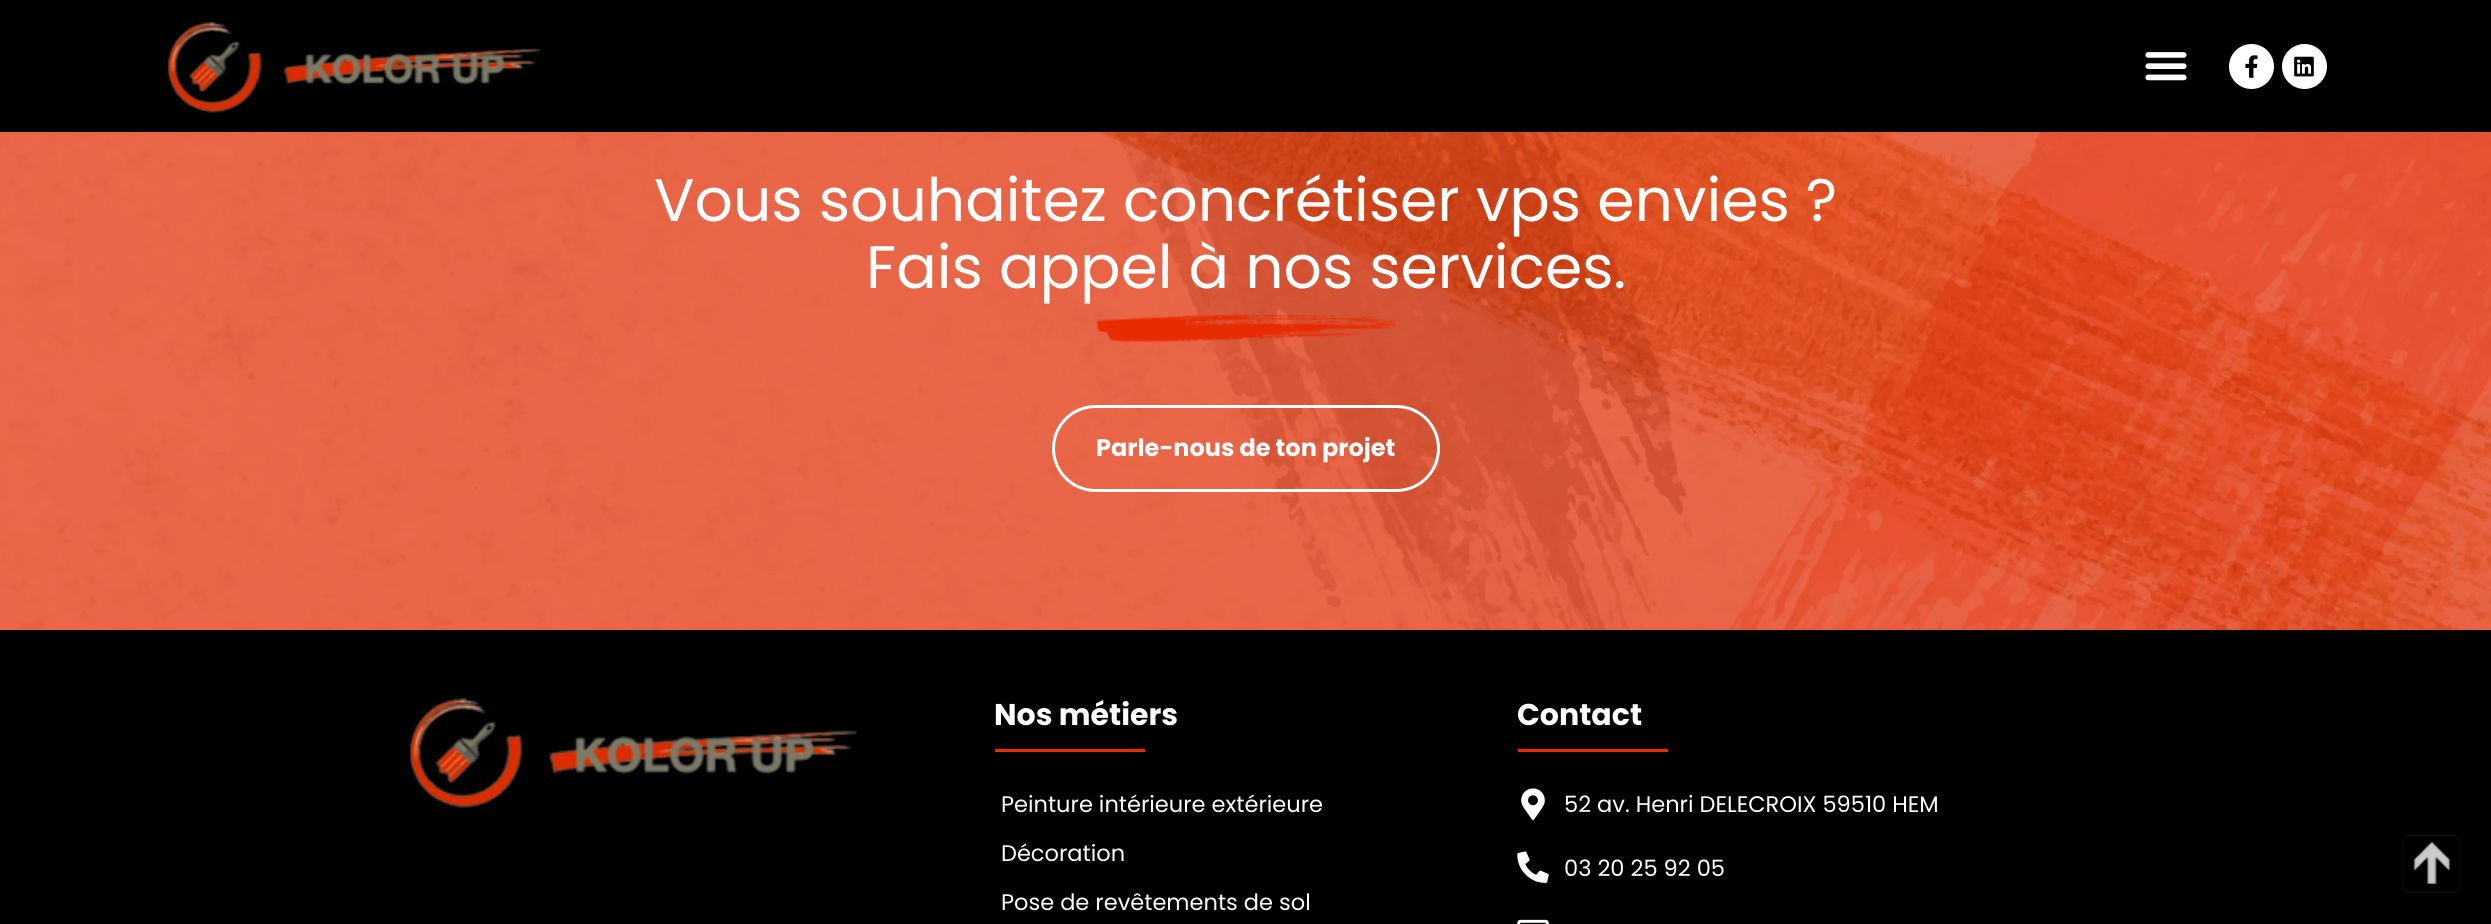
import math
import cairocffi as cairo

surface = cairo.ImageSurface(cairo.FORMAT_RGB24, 2491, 924)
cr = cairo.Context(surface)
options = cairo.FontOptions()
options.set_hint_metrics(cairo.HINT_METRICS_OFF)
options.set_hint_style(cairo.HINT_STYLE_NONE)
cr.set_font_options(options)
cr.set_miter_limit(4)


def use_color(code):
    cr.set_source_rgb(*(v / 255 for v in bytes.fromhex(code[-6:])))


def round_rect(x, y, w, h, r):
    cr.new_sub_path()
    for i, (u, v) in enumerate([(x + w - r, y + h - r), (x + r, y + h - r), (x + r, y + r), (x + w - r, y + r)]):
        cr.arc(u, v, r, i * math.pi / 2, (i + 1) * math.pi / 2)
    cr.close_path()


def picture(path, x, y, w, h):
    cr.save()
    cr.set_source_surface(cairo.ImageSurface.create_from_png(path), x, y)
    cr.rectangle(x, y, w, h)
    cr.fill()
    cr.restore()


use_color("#e82b00")
cr.paint()
use_color("#000000")
cr.rectangle(0, 0, 2491, 132)
cr.fill()
picture("img1.png", 167, 21, 373, 92)
picture("img2.png", 2145, 52, 42, 29)
use_color("#ffffff")
cr.arc(2251.5, 66.5, 22.5, 0, 2 * math.pi)
cr.fill()
picture("img3.png", 2245, 55, 13, 23)
cr.arc(2304.5, 66.5, 22.5, 0, 2 * math.pi)
cr.fill()
picture("img4.png", 2294, 56, 20, 21)
picture("img5.png", 0, 132, 2491, 498)
cr.select_font_face("Poppins")
cr.set_font_size(60)
cr.move_to(654, 221)
cr.show_text("Vous souhaitez concrétiser vps envies ?")
cr.move_to(866, 288)
cr.show_text("Fais appel à nos services.")
picture("img6.png", 1096, 315, 301, 27)
round_rect(1053.5, 406.5, 385, 84, 42)
cr.set_line_width(3)
cr.stroke()
cr.select_font_face("Poppins", cairo.FONT_SLANT_NORMAL, cairo.FONT_WEIGHT_BOLD)
cr.set_font_size(24)
cr.move_to(1096, 456)
cr.show_text("Parle-nous de ton projet")
use_color("#000000")
cr.rectangle(0, 630, 2491, 294)
cr.fill()
picture("img7.png", 409, 697, 448, 111)
cr.set_font_size(30)
use_color("#ffffff")
cr.move_to(994, 725)
cr.show_text("Nos métiers")
use_color("#e82b00")
cr.rectangle(995, 749, 150, 3)
cr.fill()
cr.select_font_face("Poppins")
cr.set_font_size(22.5)
use_color("#ffffff")
cr.move_to(1001, 812)
cr.show_text("Peinture intérieure extérieure")
cr.move_to(1001, 861)
cr.show_text("Décoration")
cr.move_to(1001, 910)
cr.show_text("Pose de revêtements de sol")
cr.select_font_face("Poppins", cairo.FONT_SLANT_NORMAL, cairo.FONT_WEIGHT_BOLD)
cr.set_font_size(30)
cr.move_to(1517, 725)
cr.show_text("Contact")
use_color("#e82b00")
cr.rectangle(1518, 749, 150, 3)
cr.fill()
picture("img8.png", 1521, 788, 24, 32)
cr.select_font_face("Poppins")
cr.set_font_size(22.5)
use_color("#ffffff")
cr.move_to(1564, 812)
cr.show_text("52 av. Henri DELECROIX 59510 HEM")
picture("img9.png", 1517, 851, 32, 32)
cr.move_to(1564, 876)
cr.show_text("03 20 25 92 05")
picture("img10.png", 1517, 919, 32, 5)
picture("img11.png", 2402, 835, 59, 58)
surface.write_to_png("result.png")
